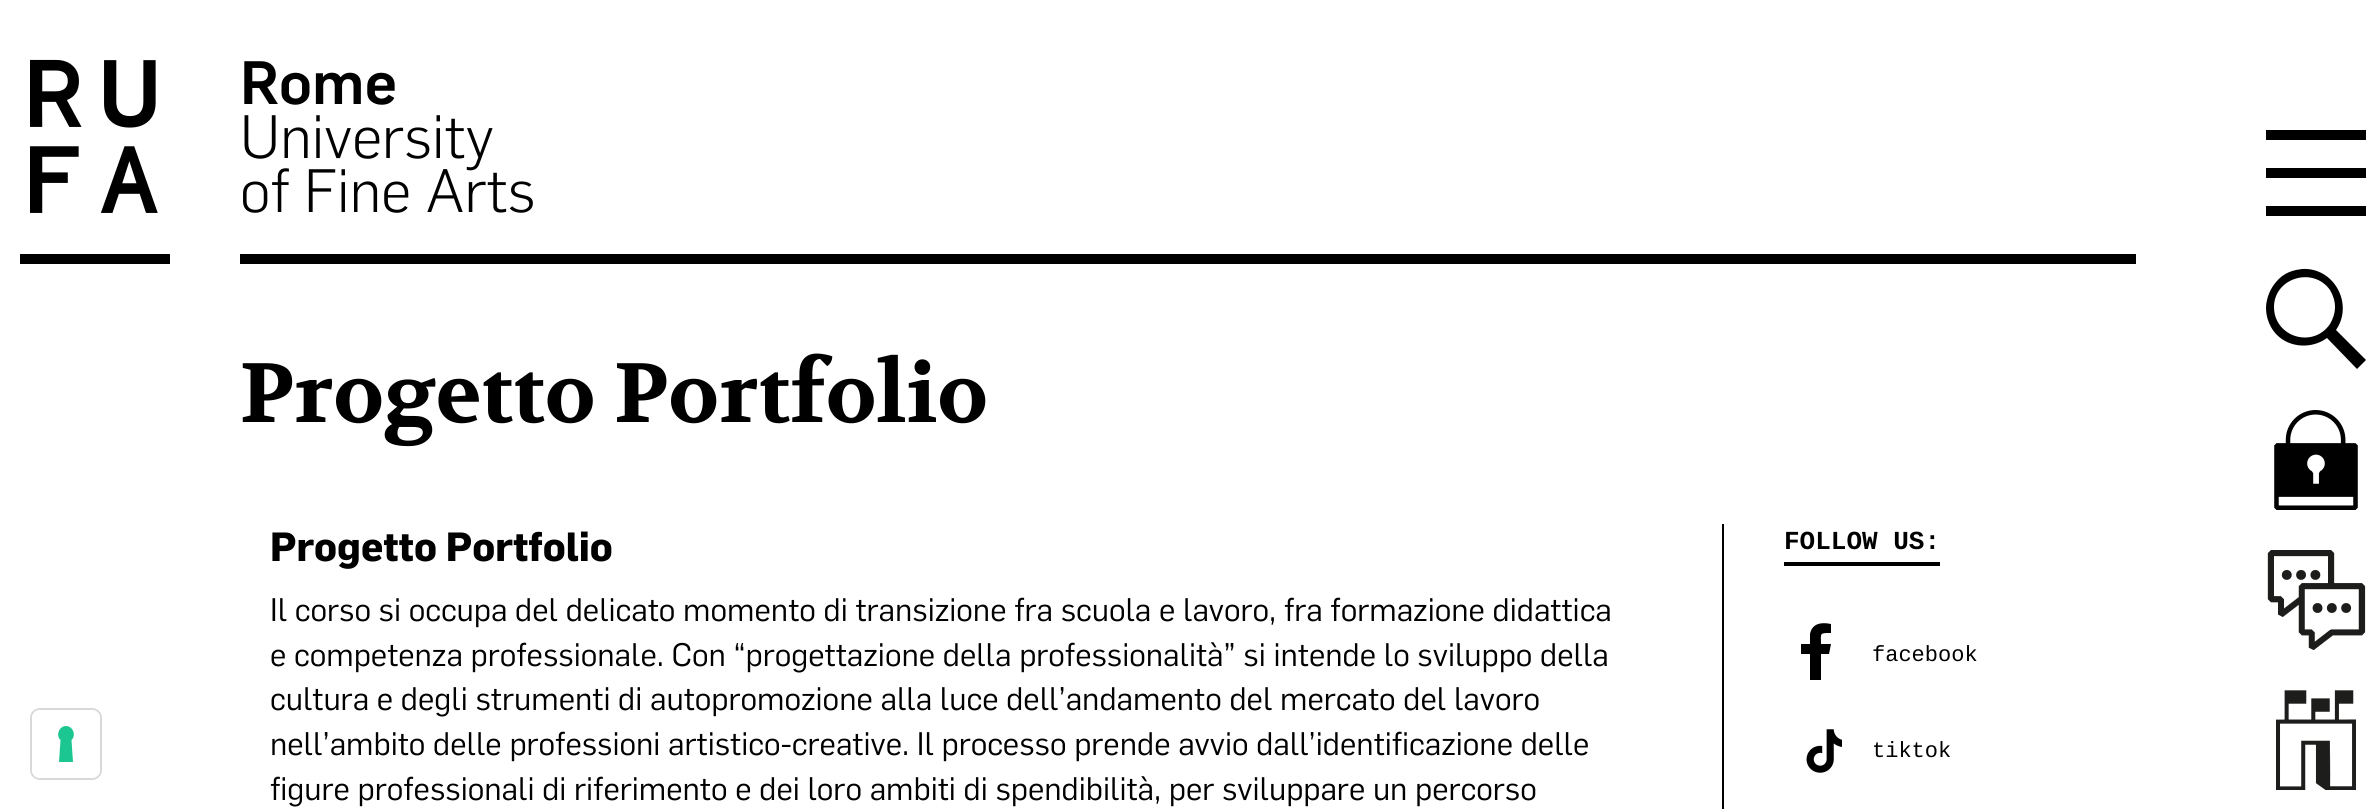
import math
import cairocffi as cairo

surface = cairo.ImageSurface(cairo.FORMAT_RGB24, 2375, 809)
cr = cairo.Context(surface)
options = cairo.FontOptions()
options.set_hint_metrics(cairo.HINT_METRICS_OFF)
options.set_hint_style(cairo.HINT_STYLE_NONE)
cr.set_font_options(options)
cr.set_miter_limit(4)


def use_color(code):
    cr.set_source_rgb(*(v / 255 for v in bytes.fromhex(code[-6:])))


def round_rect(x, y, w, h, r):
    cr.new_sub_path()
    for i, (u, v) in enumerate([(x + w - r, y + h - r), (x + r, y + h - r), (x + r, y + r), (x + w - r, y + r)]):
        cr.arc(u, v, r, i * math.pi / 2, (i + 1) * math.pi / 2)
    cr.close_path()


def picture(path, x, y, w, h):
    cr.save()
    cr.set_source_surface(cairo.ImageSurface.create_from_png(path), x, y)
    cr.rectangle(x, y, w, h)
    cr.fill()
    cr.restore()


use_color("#ffffff")
cr.paint()
round_rect(31, 709, 70, 70, 9)
use_color("#d9d9d9")
cr.stroke()
use_color("#ffffff")
round_rect(32, 710, 68, 68, 8)
cr.fill()
use_color("#1cc691")
cr.set_fill_rule(cairo.FILL_RULE_EVEN_ODD)
cr.new_path()
cr.move_to(66, 726)
cr.curve_to(73, 726, 76.5, 735.5, 71.5, 740)
cr.line_to(73, 762)
cr.line_to(59, 762)
cr.line_to(60.5, 740)
cr.curve_to(55.5, 735.5, 59, 726, 66, 726)
cr.close_path()
cr.fill()
use_color("#000000")
cr.rectangle(20, 254, 150, 10)
cr.fill()
picture("img1.png", 30, 59, 128, 154)
cr.rectangle(240, 254, 1896, 10)
cr.fill()
cr.select_font_face("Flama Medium")
cr.set_font_size(60)
cr.move_to(240, 104)
cr.show_text("Rome")
cr.select_font_face("Flama Light")
cr.move_to(240, 158)
cr.show_text("University")
cr.move_to(240, 212)
cr.show_text("of Fine Arts")
cr.rectangle(2266, 130, 100, 10)
cr.fill()
cr.rectangle(2266, 168, 100, 10)
cr.fill()
cr.rectangle(2266, 206, 100, 10)
cr.fill()
cr.set_fill_rule(cairo.FILL_RULE_WINDING)
cr.new_path()
cr.move_to(2366, 360)
cr.line_to(2336, 330)
cr.curve_to(2354, 304, 2334, 267, 2302, 269)
cr.curve_to(2294, 270, 2287, 272, 2281, 277)
cr.curve_to(2274, 283, 2269, 291, 2267, 300)
cr.curve_to(2264, 312, 2268, 326, 2277, 335)
cr.curve_to(2290, 348, 2312, 349, 2327, 338)
cr.line_to(2357, 369)
cr.close_path()
cr.move_to(2274, 307)
cr.curve_to(2274, 278, 2313, 266, 2330, 290)
cr.curve_to(2333, 295, 2335, 301, 2335, 307)
cr.curve_to(2335, 313, 2333, 319, 2330, 324)
cr.curve_to(2313, 349, 2274, 337, 2274, 307)
cr.close_path()
cr.fill()
picture("img2.png", 2274, 410, 84, 100)
picture("img3.png", 2267, 550, 99, 100)
picture("img4.png", 2276, 690, 80, 100)
cr.select_font_face("Volkhov", cairo.FONT_SLANT_NORMAL, cairo.FONT_WEIGHT_BOLD)
cr.set_font_size(84)
cr.move_to(240, 422)
cr.show_text("Progetto Portfolio")
cr.select_font_face("Flama", cairo.FONT_SLANT_NORMAL, cairo.FONT_WEIGHT_BOLD)
cr.set_font_size(40)
cr.move_to(270, 561)
cr.show_text("Progetto Portfolio")
cr.select_font_face("Flama")
cr.set_font_size(32)
cr.move_to(270, 621)
cr.show_text("Il corso si occupa del delicato momento di transizione fra scuola e lavoro, fra formazione didattica")
cr.move_to(270, 666)
cr.show_text("e competenza professionale. Con “progettazione della professionalità” si intende lo sviluppo della")
cr.move_to(270, 710)
cr.show_text("cultura e degli strumenti di autopromozione alla luce dell’andamento del mercato del lavoro")
cr.move_to(270, 755)
cr.show_text("nell’ambito delle professioni artistico-creative. Il processo prende avvio dall’identificazione delle")
cr.move_to(270, 800)
cr.show_text("figure professionali di riferimento e dei loro ambiti di spendibilità, per sviluppare un percorso")
cr.rectangle(1722, 524, 2, 285)
cr.fill()
cr.rectangle(1784, 562, 156, 4)
cr.fill()
cr.select_font_face("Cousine", cairo.FONT_SLANT_NORMAL, cairo.FONT_WEIGHT_BOLD)
cr.set_font_size(26)
cr.move_to(1784, 549)
cr.show_text("FOLLOW US:")
cr.new_path()
cr.move_to(1831, 624)
cr.line_to(1831, 633)
cr.curve_to(1819, 633, 1821, 633, 1821, 644)
cr.line_to(1831, 644)
cr.line_to(1829, 654)
cr.line_to(1821, 654)
cr.line_to(1821, 680)
cr.line_to(1810, 680)
cr.line_to(1810, 654)
cr.line_to(1801, 654)
cr.line_to(1801, 644)
cr.line_to(1810, 644)
cr.line_to(1810, 634)
cr.curve_to(1812, 623, 1822, 622, 1831, 624)
cr.close_path()
cr.fill()
cr.select_font_face("Cousine")
cr.set_font_size(22)
cr.move_to(1872, 661)
cr.show_text("facebook")
picture("img5.png", 1806, 729, 36, 44)
cr.move_to(1872, 757)
cr.show_text("tiktok")
surface.write_to_png("result.png")
